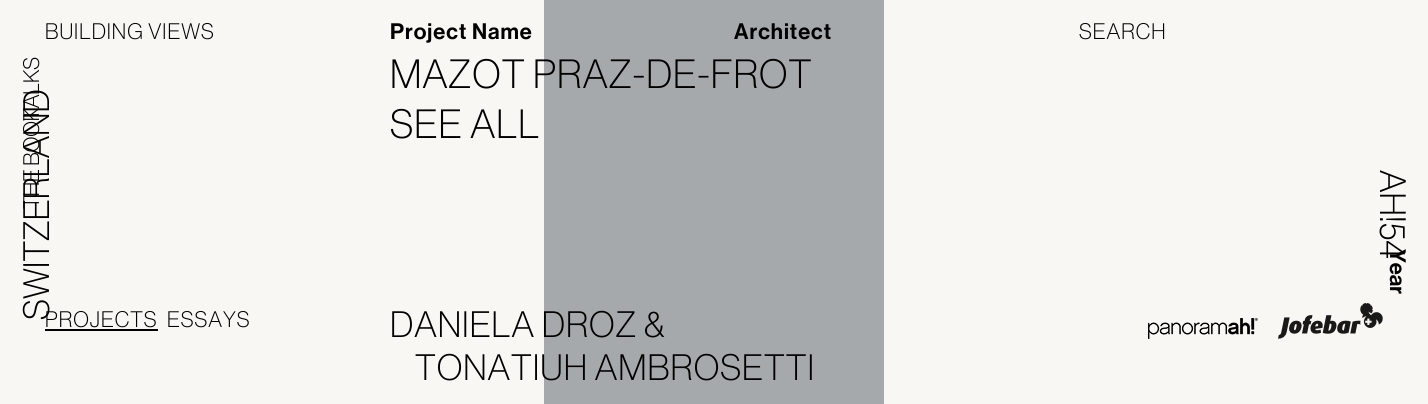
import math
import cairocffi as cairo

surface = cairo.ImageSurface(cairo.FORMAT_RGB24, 1428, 404)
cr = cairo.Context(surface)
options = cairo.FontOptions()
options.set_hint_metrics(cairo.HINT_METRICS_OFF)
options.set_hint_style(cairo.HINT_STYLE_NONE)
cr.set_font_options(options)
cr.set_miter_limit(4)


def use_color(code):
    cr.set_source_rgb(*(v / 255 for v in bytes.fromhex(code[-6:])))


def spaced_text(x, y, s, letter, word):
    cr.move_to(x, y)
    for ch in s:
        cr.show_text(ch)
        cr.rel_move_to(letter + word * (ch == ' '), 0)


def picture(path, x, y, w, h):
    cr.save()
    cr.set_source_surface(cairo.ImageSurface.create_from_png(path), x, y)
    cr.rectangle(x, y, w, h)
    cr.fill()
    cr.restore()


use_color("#f8f7f3")
cr.paint()
use_color("#a6a9ab")
cr.rectangle(544, 0, 340, 404)
cr.fill()
cr.select_font_face("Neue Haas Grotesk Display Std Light")
cr.set_font_size(22)
use_color("#000000")
cr.save()
cr.translate(39, 121)
cr.rotate(-90 * math.pi / 180)
cr.move_to(0, 0)
cr.show_text("TALKS")
cr.restore()
cr.save()
cr.translate(39, 209)
cr.rotate(-90 * math.pi / 180)
cr.move_to(0, 0)
cr.show_text("THE BOOK")
cr.restore()
cr.set_font_size(36)
cr.save()
cr.translate(49, 320)
cr.rotate(-90 * math.pi / 180)
cr.move_to(0, 0)
cr.show_text("SWITZERLAND")
cr.restore()
cr.set_font_size(22)
spaced_text(45, 39, "BUILDING VIEWS", 1, 0)
cr.select_font_face("Neue Haas Grotesk Display Std Medium")
spaced_text(390, 39, "Project Name", 1, 0)
cr.select_font_face("Neue Haas Grotesk Display Std Light")
cr.set_font_size(40)
spaced_text(390, 88, "MAZOT PRAZ-DE-FROT", 1, 0)
spaced_text(390, 138, "SEE ALL", 1, 0)
cr.set_font_size(22)
spaced_text(1079, 39, "SEARCH", 1, 0)
cr.select_font_face("Neue Haas Grotesk Display Std Medium")
spaced_text(734, 39, "Architect", 1, 0)
cr.select_font_face("Neue Haas Grotesk Display Std Light")
cr.set_font_size(36)
cr.save()
cr.translate(1380, 170)
cr.rotate(90 * math.pi / 180)
cr.move_to(0, 0)
cr.show_text("AH!54")
cr.restore()
cr.select_font_face("Neue Haas Grotesk Display Std Medium")
cr.set_font_size(22)
cr.save()
cr.translate(1390, 249)
cr.rotate(90 * math.pi / 180)
cr.move_to(0, 0)
cr.show_text("Year")
cr.restore()
cr.select_font_face("Neue Haas Grotesk Display Std Light")
spaced_text(45, 327, "PROJECTS", 1, 0)
cr.rectangle(45, 329, 113, 2)
cr.fill()
spaced_text(167, 327, "ESSAYS", 1, 0)
cr.set_font_size(36)
spaced_text(390, 337, "DANIELA DROZ &", 1, 0)
spaced_text(415, 380, "TONATIUH AMBROSETTI", 1, 0)
picture("img1.png", 1148, 318, 110, 21)
picture("img2.png", 1278, 303, 105, 36)
surface.write_to_png("result.png")
